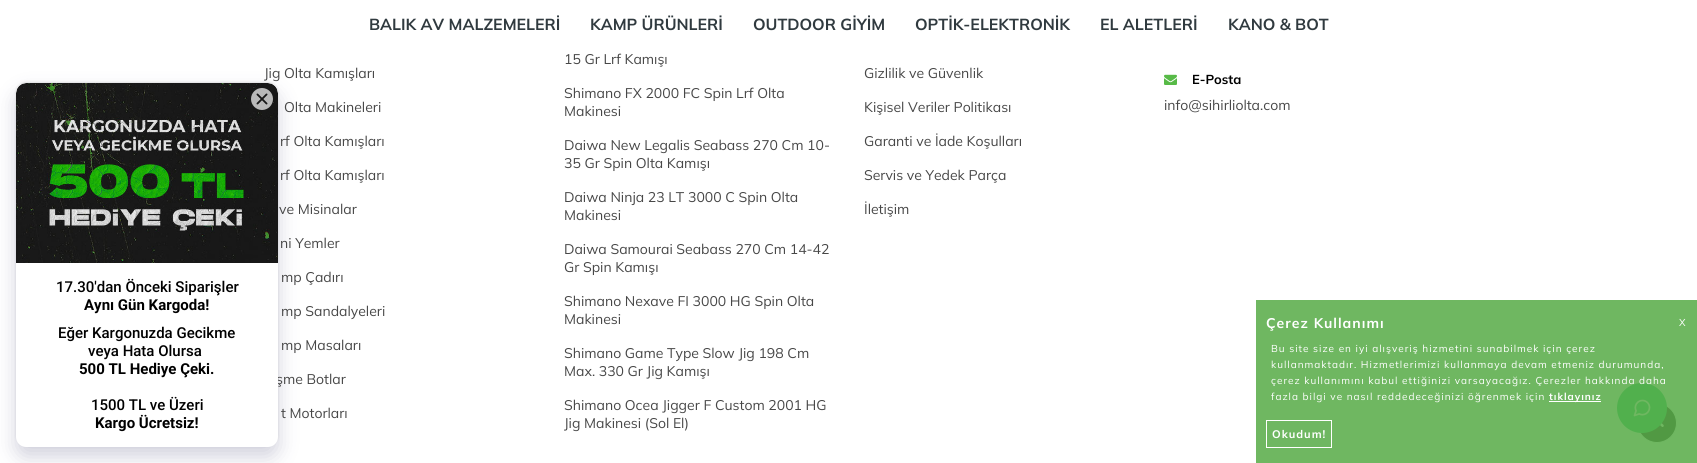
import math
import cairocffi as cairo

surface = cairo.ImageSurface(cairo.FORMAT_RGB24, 1697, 463)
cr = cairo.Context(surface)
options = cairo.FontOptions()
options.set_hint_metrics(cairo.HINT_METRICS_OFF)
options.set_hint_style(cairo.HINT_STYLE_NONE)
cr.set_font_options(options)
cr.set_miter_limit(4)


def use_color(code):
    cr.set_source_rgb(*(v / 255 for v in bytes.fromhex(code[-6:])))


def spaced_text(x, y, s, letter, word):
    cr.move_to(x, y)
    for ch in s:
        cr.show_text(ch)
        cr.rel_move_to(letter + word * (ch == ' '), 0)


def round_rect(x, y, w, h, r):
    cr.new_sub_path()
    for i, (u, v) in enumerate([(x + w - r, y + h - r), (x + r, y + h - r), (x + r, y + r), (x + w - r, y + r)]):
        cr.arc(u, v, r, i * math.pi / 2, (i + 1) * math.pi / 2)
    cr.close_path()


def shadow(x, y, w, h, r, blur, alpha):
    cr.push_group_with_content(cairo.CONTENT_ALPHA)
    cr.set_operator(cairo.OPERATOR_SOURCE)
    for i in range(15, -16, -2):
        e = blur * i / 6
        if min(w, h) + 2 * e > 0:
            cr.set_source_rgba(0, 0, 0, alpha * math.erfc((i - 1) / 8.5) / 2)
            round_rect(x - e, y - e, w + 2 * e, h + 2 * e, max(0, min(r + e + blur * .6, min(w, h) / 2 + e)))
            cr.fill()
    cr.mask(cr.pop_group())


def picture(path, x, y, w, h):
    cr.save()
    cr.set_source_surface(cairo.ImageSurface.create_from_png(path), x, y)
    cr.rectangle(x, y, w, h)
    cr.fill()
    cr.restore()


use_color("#ffffff")
cr.paint()
use_color("#6fb761")
cr.rectangle(1256, 300, 441, 163)
cr.fill()
cr.select_font_face("Mulish", cairo.FONT_SLANT_NORMAL, cairo.FONT_WEIGHT_BOLD)
cr.set_font_size(16)
use_color("#303a3f")
cr.move_to(369, 30)
cr.show_text("BALIK AV MALZEMELERİ")
cr.move_to(590, 30)
cr.show_text("KAMP ÜRÜNLERİ")
cr.move_to(753, 30)
cr.show_text("OUTDOOR GİYİM")
cr.move_to(915, 30)
cr.show_text("OPTİK-ELEKTRONİK")
cr.move_to(1100, 30)
cr.show_text("EL ALETLERİ")
cr.move_to(1228, 30)
cr.show_text("KANO & BOT")
use_color("#519943")
cr.new_path()
cr.arc(1657, 423, 19.5, 0, 2 * math.pi)
cr.fill_preserve()
use_color("#6fb761")
cr.set_line_width(1)
cr.stroke()
picture("img1.png", 1660, 423, 4, 4)
use_color("#1f1f57")
shadow(16, 93, 262, 364, 10, 10, 0.2)
use_color("#000000")
shadow(16, 82, 262, 364, 10, 1, 0.1)
cr.select_font_face("Mulish")
cr.set_font_size(14)
use_color("#474747")
cr.move_to(276, 384)
cr.show_text("şme Botlar")
use_color("#ffffff")
round_rect(16, 83, 262, 364, 10)
cr.fill()
picture("img2.png", 16, 83, 262, 180)
picture("img3.png", 251, 88, 22, 22)
cr.select_font_face("Roboto Medium")
cr.set_font_size(15)
use_color("#000000")
cr.move_to(56, 292)
cr.show_text("17.30'dan Önceki Siparişler")
cr.select_font_face("Roboto", cairo.FONT_SLANT_NORMAL, cairo.FONT_WEIGHT_BOLD)
cr.move_to(84, 310)
cr.show_text("Aynı Gün Kargoda!")
cr.select_font_face("Roboto Medium")
cr.move_to(58, 338)
cr.show_text("Eğer Kargonuzda Gecikme")
cr.move_to(88, 356)
cr.show_text("veya Hata Olursa")
cr.select_font_face("Roboto", cairo.FONT_SLANT_NORMAL, cairo.FONT_WEIGHT_BOLD)
cr.move_to(79, 374)
cr.show_text("500 TL Hediye Çeki.")
cr.select_font_face("Roboto Medium")
cr.move_to(91, 410)
cr.show_text("1500 TL ve Üzeri")
cr.select_font_face("Roboto", cairo.FONT_SLANT_NORMAL, cairo.FONT_WEIGHT_BOLD)
cr.move_to(95, 428)
cr.show_text("Kargo Ücretsiz!")
cr.select_font_face("Mulish")
cr.set_font_size(14)
use_color("#474747")
cr.move_to(264, 78)
cr.show_text("Jig Olta Kamışları")
cr.move_to(284, 112)
cr.show_text("Olta Makineleri")
cr.move_to(280, 146)
cr.show_text("rf Olta Kamışları")
cr.move_to(280, 180)
cr.show_text("rf Olta Kamışları")
cr.move_to(279, 214)
cr.show_text("ve Misinalar")
cr.move_to(280, 248)
cr.show_text("ni Yemler")
cr.move_to(281, 282)
cr.show_text("mp Çadırı")
cr.move_to(281, 316)
cr.show_text("mp Sandalyeleri")
cr.move_to(281, 350)
cr.show_text("mp Masaları")
cr.move_to(281, 418)
cr.show_text("t Motorları")
cr.move_to(564, 64)
cr.show_text("15 Gr Lrf Kamışı")
cr.move_to(564, 98)
cr.show_text("Shimano FX 2000 FC Spin Lrf Olta")
cr.move_to(564, 116)
cr.show_text("Makinesi")
cr.move_to(564, 150)
cr.show_text("Daiwa New Legalis Seabass 270 Cm 10-")
cr.move_to(564, 168)
cr.show_text("35 Gr Spin Olta Kamışı")
cr.move_to(564, 202)
cr.show_text("Daiwa Ninja 23 LT 3000 C Spin Olta")
cr.move_to(564, 220)
cr.show_text("Makinesi")
cr.move_to(564, 254)
cr.show_text("Daiwa Samourai Seabass 270 Cm 14-42")
cr.move_to(564, 272)
cr.show_text("Gr Spin Kamışı")
cr.move_to(564, 306)
cr.show_text("Shimano Nexave FI 3000 HG Spin Olta")
cr.move_to(564, 324)
cr.show_text("Makinesi")
cr.move_to(564, 358)
cr.show_text("Shimano Game Type Slow Jig 198 Cm")
cr.move_to(564, 376)
cr.show_text("Max. 330 Gr Jig Kamışı")
cr.move_to(564, 410)
cr.show_text("Shimano Ocea Jigger F Custom 2001 HG")
cr.move_to(564, 428)
cr.show_text("Jig Makinesi (Sol El)")
cr.move_to(864, 78)
cr.show_text("Gizlilik ve Güvenlik")
cr.move_to(864, 112)
cr.show_text("Kişisel Veriler Politikası")
cr.move_to(864, 146)
cr.show_text("Garanti ve İade Koşulları")
cr.move_to(864, 180)
cr.show_text("Servis ve Yedek Parça")
cr.move_to(864, 214)
cr.show_text("İletişim")
picture("img4.png", 1164, 74, 13, 11)
cr.select_font_face("Mulish", cairo.FONT_SLANT_NORMAL, cairo.FONT_WEIGHT_BOLD)
cr.set_font_size(13)
use_color("#000000")
cr.move_to(1192, 84)
cr.show_text("E-Posta")
cr.select_font_face("Mulish")
cr.set_font_size(14)
use_color("#474747")
cr.move_to(1164, 110)
cr.show_text("info@sihirliolta.com")
cr.select_font_face("Mulish", cairo.FONT_SLANT_NORMAL, cairo.FONT_WEIGHT_BOLD)
use_color("#ffffff")
spaced_text(1266, 328, "Çerez Kullanımı", 1, 0)
cr.select_font_face("Mulish")
cr.set_font_size(10)
spaced_text(1679, 326, "X", 1, 0)
spaced_text(1271, 352, "Bu site size en iyi alışveriş hizmetini sunabilmek için çerez", 1, 0)
spaced_text(1271, 368, "kullanmaktadır. Hizmetlerimizi kullanmaya devam etmeniz durumunda,", 1, 0)
use_color("#51b04d")
cr.new_path()
cr.arc(1642, 408, 25, 0, 2 * math.pi)
cr.fill()
use_color("#ffffff")
spaced_text(1271, 384, "çerez kullanımını kabul ettiğinizi varsayacağız. Çerezler hakkında daha", 1, 0)
spaced_text(1271, 400, "fazla bilgi ve nasıl reddedeceğinizi öğrenmek için", 1, 0)
cr.rectangle(1549, 401, 52, 1)
cr.fill()
cr.select_font_face("Mulish", cairo.FONT_SLANT_NORMAL, cairo.FONT_WEIGHT_BOLD)
spaced_text(1549, 400, "tıklayınız", 1, 0)
cr.rectangle(1266.5, 420.5, 65, 27)
cr.stroke()
cr.set_font_size(11)
spaced_text(1272, 438, "Okudum!", 1, 0)
picture("img5.png", 1633, 399, 18, 18)
surface.write_to_png("result.png")
